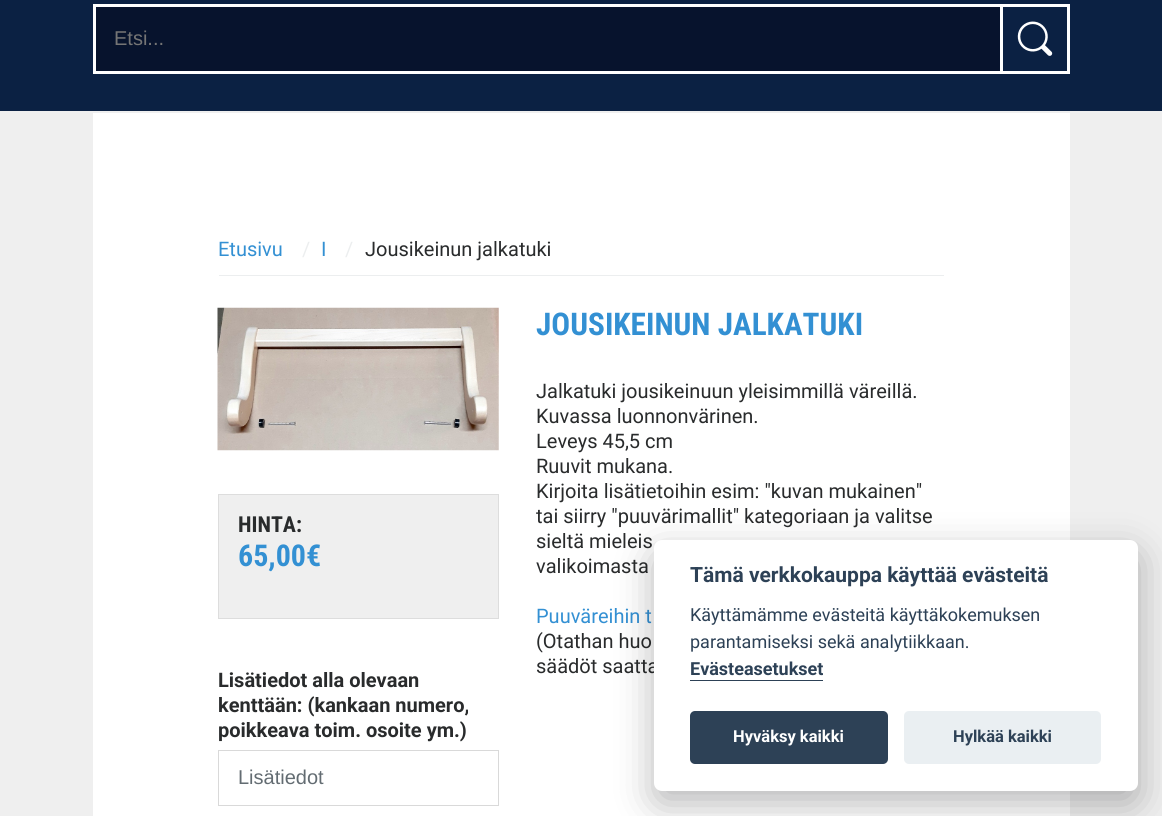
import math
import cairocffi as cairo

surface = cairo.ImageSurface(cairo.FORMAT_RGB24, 1162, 816)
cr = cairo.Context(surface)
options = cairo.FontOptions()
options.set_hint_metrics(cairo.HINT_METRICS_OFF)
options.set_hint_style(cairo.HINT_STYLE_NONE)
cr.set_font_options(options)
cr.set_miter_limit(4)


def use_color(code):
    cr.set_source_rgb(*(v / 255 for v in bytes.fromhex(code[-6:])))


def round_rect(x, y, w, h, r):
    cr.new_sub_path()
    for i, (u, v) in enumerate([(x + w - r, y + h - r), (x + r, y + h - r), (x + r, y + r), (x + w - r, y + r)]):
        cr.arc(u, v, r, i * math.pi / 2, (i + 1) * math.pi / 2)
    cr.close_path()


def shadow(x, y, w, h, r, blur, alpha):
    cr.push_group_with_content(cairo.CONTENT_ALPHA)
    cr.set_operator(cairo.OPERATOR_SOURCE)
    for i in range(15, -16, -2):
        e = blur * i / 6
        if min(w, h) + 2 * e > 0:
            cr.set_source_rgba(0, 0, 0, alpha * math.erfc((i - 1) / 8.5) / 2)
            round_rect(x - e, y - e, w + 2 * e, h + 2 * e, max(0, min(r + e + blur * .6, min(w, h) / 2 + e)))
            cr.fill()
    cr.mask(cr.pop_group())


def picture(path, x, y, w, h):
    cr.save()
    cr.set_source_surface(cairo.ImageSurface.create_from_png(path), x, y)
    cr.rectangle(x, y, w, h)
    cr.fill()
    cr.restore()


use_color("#efefef")
cr.paint()
use_color("#0b2143")
cr.rectangle(0, 0, 1162, 111)
cr.fill()
use_color("#07132d")
cr.rectangle(96, 7, 904, 64)
cr.fill()
use_color("#ffffff")
cr.rectangle(93, 4, 907, 3)
cr.fill()
cr.rectangle(93, 71, 907, 3)
cr.fill()
cr.rectangle(93, 4, 3, 70)
cr.fill()
cr.select_font_face("Liberation Sans")
cr.set_font_size(20)
use_color("#757575")
cr.move_to(114, 45)
cr.show_text("Etsi...")
cr.rectangle(1001.5, 5.5, 67, 67)
use_color("#ffffff")
cr.set_line_width(3)
cr.stroke()
picture("img1.png", 1017, 21, 36, 35)
cr.rectangle(93, 113, 977, 703)
cr.fill()
use_color("#eceeef")
cr.rectangle(219, 275, 725, 1)
cr.fill()
cr.select_font_face("Roboto")
use_color("#3390d3")
cr.move_to(218, 256)
cr.show_text("Etusivu")
use_color("#eceeef")
cr.move_to(302, 256)
cr.show_text("/")
use_color("#3390d3")
cr.move_to(321, 256)
cr.show_text("I")
use_color("#eceeef")
cr.move_to(345, 256)
cr.show_text("/")
use_color("#292b2c")
cr.move_to(365, 256)
cr.show_text("Jousikeinun jalkatuki")
picture("img2.png", 217, 307, 282, 144)
use_color("#efefef")
cr.rectangle(218.5, 494.5, 280, 124)
cr.fill_preserve()
use_color("#dddddd")
cr.set_line_width(1)
cr.stroke()
cr.select_font_face("Roboto Condensed", cairo.FONT_SLANT_NORMAL, cairo.FONT_WEIGHT_BOLD)
cr.set_font_size(22)
use_color("#292b2c")
cr.move_to(238, 532)
cr.show_text("HINTA:")
cr.set_font_size(30)
use_color("#3390d3")
cr.move_to(238, 566)
cr.show_text("65,00€")
cr.select_font_face("Roboto", cairo.FONT_SLANT_NORMAL, cairo.FONT_WEIGHT_BOLD)
cr.set_font_size(20)
use_color("#292b2c")
cr.move_to(218, 687)
cr.show_text("Lisätiedot alla olevaan")
cr.move_to(218, 712)
cr.show_text("kenttään: (kankaan numero,")
cr.move_to(218, 737)
cr.show_text("poikkeava toim. osoite ym.)")
cr.rectangle(218.5, 750.5, 280, 55)
use_color("#d9d9d9")
cr.stroke()
cr.select_font_face("Liberation Sans")
use_color("#636c72")
cr.move_to(238, 784)
cr.show_text("Lisätiedot")
cr.select_font_face("Roboto Condensed", cairo.FONT_SLANT_NORMAL, cairo.FONT_WEIGHT_BOLD)
cr.set_font_size(31.25)
use_color("#3390d3")
cr.move_to(536, 335)
cr.show_text("JOUSIKEINUN JALKATUKI")
cr.select_font_face("Roboto")
cr.set_font_size(20)
use_color("#292b2c")
cr.move_to(536, 398)
cr.show_text("Jalkatuki jousikeinuun yleisimmillä väreillä.")
cr.move_to(536, 423)
cr.show_text("Kuvassa luonnonvärinen.")
cr.move_to(536, 448)
cr.show_text("Leveys 45,5 cm")
cr.move_to(536, 473)
cr.show_text("Ruuvit mukana.")
cr.move_to(536, 498)
cr.show_text("Kirjoita lisätietoihin esim: \"kuvan mukainen\"")
cr.move_to(536, 523)
cr.show_text("tai siirry \"puuvärimallit\" kategoriaan ja valitse")
cr.move_to(536, 548)
cr.show_text("sieltä mieleis")
cr.move_to(536, 573)
cr.show_text("valikoimasta")
use_color("#3390d3")
cr.move_to(536, 623)
cr.show_text("Puuväreihin t")
use_color("#292b2c")
cr.move_to(536, 648)
cr.show_text("(Otathan huo")
cr.move_to(536, 673)
cr.show_text("säädöt saatta")
use_color("#020203")
shadow(654, 553, 484, 251, 8, 19, 0.28)
use_color("#ffffff")
round_rect(654, 540, 484, 251, 8)
cr.fill()
cr.select_font_face("Roboto", cairo.FONT_SLANT_NORMAL, cairo.FONT_WEIGHT_BOLD)
cr.set_font_size(21)
use_color("#2d4156")
cr.move_to(690, 582)
cr.show_text("Tämä verkkokauppa käyttää evästeitä")
cr.select_font_face("Roboto")
cr.set_font_size(18)
cr.move_to(690, 621)
cr.show_text("Käyttämämme evästeitä käyttäkokemuksen")
cr.move_to(690, 648)
cr.show_text("parantamiseksi sekä analytiikkaan.")
cr.select_font_face("Roboto", cairo.FONT_SLANT_NORMAL, cairo.FONT_WEIGHT_BOLD)
cr.move_to(690, 675)
cr.show_text("Evästeasetukset")
cr.rectangle(690, 680, 133, 1)
cr.fill()
round_rect(690, 711, 198, 53, 5)
cr.fill()
cr.set_font_size(16.5)
use_color("#ffffff")
cr.move_to(733, 742)
cr.show_text("Hyväksy kaikki")
use_color("#eaeff2")
round_rect(904, 711, 197, 53, 5)
cr.fill()
use_color("#2d4156")
cr.move_to(953, 742)
cr.show_text("Hylkää kaikki")
surface.write_to_png("result.png")
